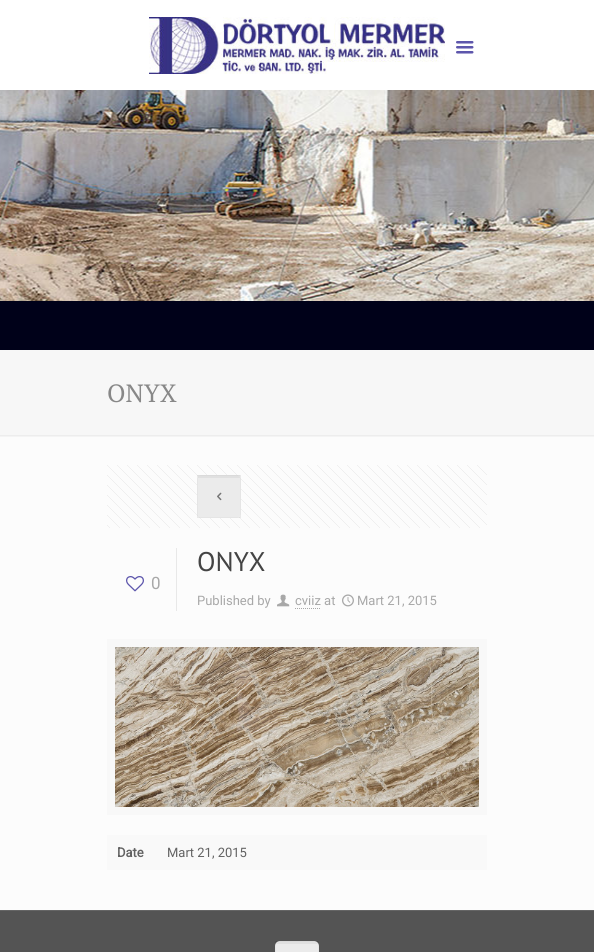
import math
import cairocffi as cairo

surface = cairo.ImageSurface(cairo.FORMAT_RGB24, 594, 952)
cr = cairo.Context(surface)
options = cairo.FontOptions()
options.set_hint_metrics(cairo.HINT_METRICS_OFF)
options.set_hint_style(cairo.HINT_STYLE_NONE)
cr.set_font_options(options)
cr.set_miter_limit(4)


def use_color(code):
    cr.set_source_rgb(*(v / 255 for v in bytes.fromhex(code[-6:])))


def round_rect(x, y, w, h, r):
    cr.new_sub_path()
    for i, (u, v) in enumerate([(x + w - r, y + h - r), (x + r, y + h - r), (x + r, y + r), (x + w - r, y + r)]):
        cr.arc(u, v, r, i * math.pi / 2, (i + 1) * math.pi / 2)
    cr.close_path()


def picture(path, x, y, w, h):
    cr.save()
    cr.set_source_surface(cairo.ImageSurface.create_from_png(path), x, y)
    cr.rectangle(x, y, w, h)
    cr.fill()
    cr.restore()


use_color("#fcfcfc")
cr.paint()
use_color("#000119")
cr.rectangle(0, 301, 594, 49)
cr.fill()
picture("img1.png", 0, 90, 594, 211)
use_color("#ffffff")
cr.rectangle(0, 0, 594, 90)
cr.fill()
picture("img2.png", 149, 17, 296, 57)
picture("img3.png", 456, 41, 18, 13)
use_color("#f7f7f7")
cr.rectangle(0, 350, 594, 85)
cr.fill()
cr.select_font_face("PT Serif")
cr.set_font_size(25)
use_color("#888888")
cr.move_to(107, 402)
cr.show_text("ONYX")
picture("img4.png", 0, 435, 594, 2)
picture("img5.png", 107, 465, 380, 63)
use_color("#f7f7f7")
round_rect(197, 475, 44, 43, 5)
cr.fill()
cr.set_source_rgba(0, 0, 0, 0.05)
cr.rectangle(198, 475, 42, 3)
cr.fill()
cr.rectangle(197.5, 475.5, 43, 42)
cr.set_source_rgba(0, 0, 0, 0.03)
cr.set_line_width(1)
cr.stroke()
cr.set_source_rgba(0, 0, 0, 0.05)
cr.rectangle(197, 475, 44, 43)
cr.fill()
picture("img6.png", 217, 492, 5, 9)
picture("img7.png", 126, 576, 18, 16)
cr.select_font_face("Roboto")
cr.set_font_size(17)
use_color("#a8a8a8")
cr.move_to(151, 589)
cr.show_text("0")
use_color("#e8e8e8")
cr.rectangle(176, 548, 1, 63)
cr.fill()
cr.select_font_face("PT Sans")
cr.set_font_size(27)
use_color("#444444")
cr.move_to(197, 571)
cr.show_text("ONYX")
cr.select_font_face("Roboto")
cr.set_font_size(13)
use_color("#a8a8a8")
cr.move_to(197, 605)
cr.show_text("Published by")
picture("img8.png", 277, 594, 13, 13)
cr.move_to(295, 605)
cr.show_text("cviiz at")
cr.new_path()
cr.move_to(295, 608.5)
cr.line_to(321, 608.5)
cr.set_dash([1, 1])
cr.stroke()
picture("img9.png", 342, 594, 12, 13)
cr.move_to(357, 605)
cr.show_text("Mart 21, 2015")
cr.rectangle(111, 643, 372, 168)
use_color("#f8f8f8")
cr.set_line_width(8)
cr.set_dash([])
cr.stroke()
picture("img10.png", 115, 647, 364, 160)
use_color("#f9f9f9")
cr.rectangle(107, 835, 380, 35)
cr.fill()
cr.select_font_face("Roboto", cairo.FONT_SLANT_NORMAL, cairo.FONT_WEIGHT_BOLD)
use_color("#626262")
cr.move_to(117, 857)
cr.show_text("Date")
cr.select_font_face("Roboto")
cr.move_to(167, 857)
cr.show_text("Mart 21, 2015")
use_color("#545454")
cr.rectangle(0, 911, 594, 41)
cr.fill()
use_color("#656565")
cr.rectangle(0, 910, 594, 1)
cr.fill()
use_color("#f7f7f7")
round_rect(275, 941, 44, 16, 5)
cr.fill()
cr.set_source_rgba(0, 0, 0, 0.05)
cr.rectangle(276, 941, 42, 3)
cr.fill()
cr.rectangle(275.5, 941.5, 43, 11)
cr.set_source_rgba(0, 0, 0, 0.03)
cr.set_line_width(1)
cr.stroke()
cr.set_source_rgba(0, 0, 0, 0.05)
cr.rectangle(275, 941, 44, 11)
cr.fill()
surface.write_to_png("result.png")
